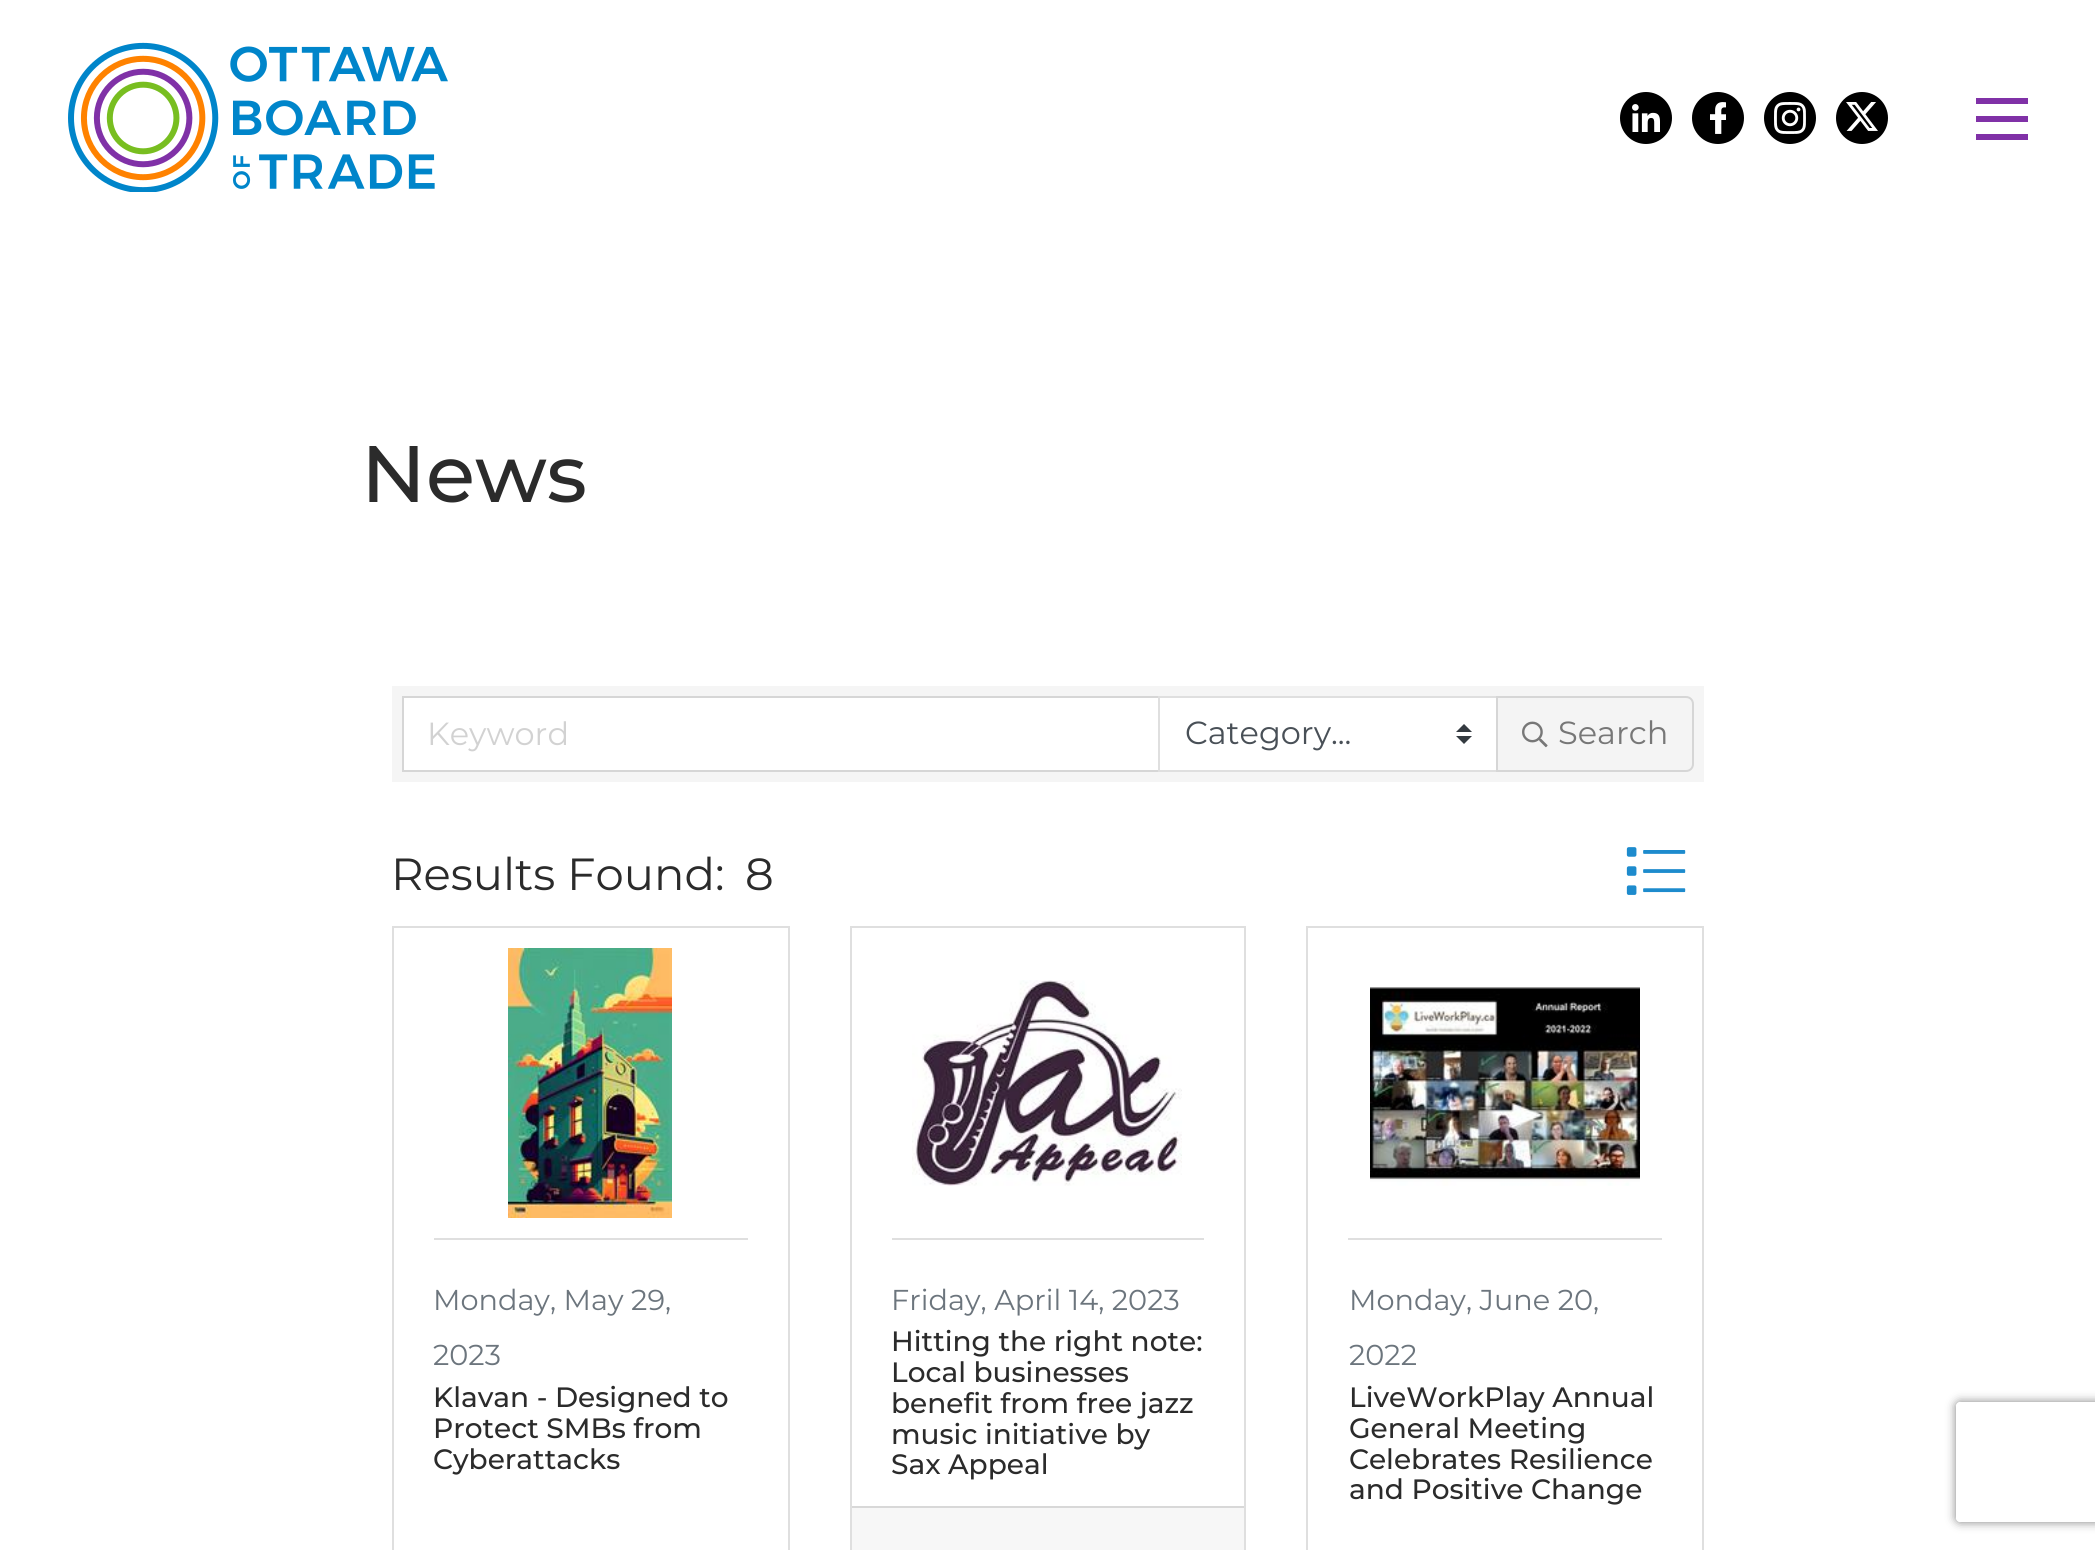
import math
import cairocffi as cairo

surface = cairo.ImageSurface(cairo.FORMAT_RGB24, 2095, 1550)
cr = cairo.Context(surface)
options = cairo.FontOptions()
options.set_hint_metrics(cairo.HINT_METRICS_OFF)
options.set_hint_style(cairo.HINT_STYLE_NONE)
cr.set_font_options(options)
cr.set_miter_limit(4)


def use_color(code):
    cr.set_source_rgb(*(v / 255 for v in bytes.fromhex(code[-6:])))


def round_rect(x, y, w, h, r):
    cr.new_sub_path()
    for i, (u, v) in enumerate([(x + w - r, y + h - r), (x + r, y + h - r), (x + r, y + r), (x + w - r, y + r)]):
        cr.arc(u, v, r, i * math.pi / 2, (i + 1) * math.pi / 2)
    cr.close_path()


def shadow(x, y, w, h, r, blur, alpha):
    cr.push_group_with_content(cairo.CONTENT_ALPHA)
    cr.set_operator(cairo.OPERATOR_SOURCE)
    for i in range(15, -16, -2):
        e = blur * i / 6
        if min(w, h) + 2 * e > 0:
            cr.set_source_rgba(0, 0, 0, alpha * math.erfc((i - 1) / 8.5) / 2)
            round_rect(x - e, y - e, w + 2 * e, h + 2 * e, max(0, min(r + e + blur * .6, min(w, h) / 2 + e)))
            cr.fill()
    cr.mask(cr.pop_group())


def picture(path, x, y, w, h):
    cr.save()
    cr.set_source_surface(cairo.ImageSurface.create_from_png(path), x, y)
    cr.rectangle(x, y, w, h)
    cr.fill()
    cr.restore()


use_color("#ffffff")
cr.paint()
picture("img1.png", 68, 42, 380, 150)
use_color("#000000")
cr.arc(1646, 118, 26, 0, 2 * math.pi)
cr.fill()
picture("img2.png", 1632, 104, 28, 28)
cr.arc(1718, 118, 26, 0, 2 * math.pi)
cr.fill()
picture("img3.png", 1710, 102, 16, 32)
cr.arc(1790, 118, 26, 0, 2 * math.pi)
cr.fill()
picture("img4.png", 1774, 102, 32, 32)
cr.arc(1862, 118, 26, 0, 2 * math.pi)
cr.fill()
picture("img5.png", 1846, 102, 32, 29)
use_color("#8031a7")
cr.rectangle(1976, 98, 52, 6)
cr.fill()
cr.rectangle(1976, 116, 52, 6)
cr.fill()
cr.rectangle(1976, 134, 52, 6)
cr.fill()
cr.select_font_face("Montserrat Medium")
cr.set_font_size(80)
use_color("#2b2b2b")
cr.move_to(361, 502)
cr.show_text("News")
use_color("#f5f5f5")
cr.rectangle(392, 686, 1312, 96)
cr.fill()
use_color("#ffffff")
cr.rectangle(403, 697, 756, 74)
cr.fill_preserve()
use_color("#d6d6d6")
cr.stroke()
cr.select_font_face("Montserrat")
cr.set_font_size(32)
use_color("#d2d2d2")
cr.move_to(427, 745)
cr.show_text("Keyword")
use_color("#ffffff")
cr.rectangle(1160, 698, 336, 72)
cr.fill()
use_color("#343a40")
cr.new_path()
cr.move_to(1464, 724)
cr.line_to(1456, 732)
cr.line_to(1472, 732)
cr.close_path()
cr.move_to(1464, 744)
cr.line_to(1456, 736)
cr.line_to(1472, 736)
cr.close_path()
cr.fill()
cr.rectangle(1159, 697, 338, 74)
use_color("#dfdfdf")
cr.stroke()
use_color("#495057")
cr.move_to(1185, 744)
cr.show_text("Category...")
use_color("#f4f4f4")
cr.new_path()
cr.move_to(1497, 697)
cr.line_to(1686, 697)
cr.curve_to(1690, 697, 1693, 700, 1693, 704)
cr.line_to(1693, 764)
cr.curve_to(1693, 768, 1690, 771, 1686, 771)
cr.line_to(1497, 771)
cr.close_path()
cr.fill_preserve()
use_color("#d6d6d6")
cr.stroke()
picture("img6.png", 1522, 721, 26, 27)
use_color("#777777")
cr.move_to(1558, 744)
cr.show_text("Search")
cr.set_font_size(45)
use_color("#2b2b2b")
cr.move_to(391, 890)
cr.show_text("Results Found:")
cr.move_to(745, 890)
cr.show_text("8")
picture("img7.png", 1626, 847, 60, 48)
cr.rectangle(393, 927, 396, 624)
use_color("#dfdfdf")
cr.stroke()
picture("img8.png", 508, 948, 164, 270)
cr.rectangle(434, 1238, 314, 2)
cr.fill()
cr.set_font_size(28.75)
use_color("#6c757d")
cr.move_to(433, 1310)
cr.show_text("Monday, May 29,")
cr.move_to(433, 1365)
cr.show_text("2023")
cr.select_font_face("Montserrat Medium")
cr.set_font_size(28)
use_color("#2b2b2b")
cr.move_to(433, 1407)
cr.show_text("Klavan - Designed to")
cr.move_to(433, 1438)
cr.show_text("Protect SMBs from")
cr.move_to(433, 1469)
cr.show_text("Cyberattacks")
cr.rectangle(851, 927, 394, 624)
use_color("#dfdfdf")
cr.stroke()
picture("img9.png", 912, 980, 270, 206)
cr.rectangle(892, 1238, 312, 2)
cr.fill()
cr.select_font_face("Montserrat")
cr.set_font_size(28.75)
use_color("#6c757d")
cr.move_to(891, 1310)
cr.show_text("Friday, April 14, 2023")
cr.select_font_face("Montserrat Medium")
cr.set_font_size(28)
use_color("#2b2b2b")
cr.move_to(891, 1351)
cr.show_text("Hitting the right note:")
cr.move_to(891, 1382)
cr.show_text("Local businesses")
cr.move_to(891, 1413)
cr.show_text("benefit from free jazz")
cr.move_to(891, 1444)
cr.show_text("music initiative by")
cr.move_to(891, 1474)
cr.show_text("Sax Appeal")
use_color("#f7f7f7")
cr.rectangle(852, 1508, 392, 42)
cr.fill()
use_color("#d8d8d8")
cr.rectangle(852, 1506, 392, 2)
cr.fill()
cr.rectangle(1307, 927, 396, 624)
use_color("#dfdfdf")
cr.stroke()
picture("img10.png", 1370, 987, 270, 199)
cr.rectangle(1348, 1238, 314, 2)
cr.fill()
cr.select_font_face("Montserrat")
cr.set_font_size(28.75)
use_color("#6c757d")
cr.move_to(1349, 1310)
cr.show_text("Monday, June 20,")
cr.move_to(1349, 1365)
cr.show_text("2022")
cr.select_font_face("Montserrat Medium")
cr.set_font_size(28)
use_color("#2b2b2b")
cr.move_to(1349, 1407)
cr.show_text("LiveWorkPlay Annual")
cr.move_to(1349, 1438)
cr.show_text("General Meeting")
cr.move_to(1349, 1469)
cr.show_text("Celebrates Resilience")
cr.move_to(1349, 1499)
cr.show_text("and Positive Change")
cr.save()
cr.set_fill_rule(cairo.FILL_RULE_EVEN_ODD)
cr.new_path()
cr.move_to(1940, 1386)
cr.line_to(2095, 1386)
cr.line_to(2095, 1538)
cr.line_to(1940, 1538)
cr.close_path()
cr.move_to(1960, 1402)
cr.line_to(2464, 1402)
cr.curve_to(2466, 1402, 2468, 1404, 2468, 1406)
cr.line_to(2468, 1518)
cr.curve_to(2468, 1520, 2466, 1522, 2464, 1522)
cr.line_to(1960, 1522)
cr.curve_to(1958, 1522, 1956, 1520, 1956, 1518)
cr.line_to(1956, 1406)
cr.curve_to(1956, 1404, 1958, 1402, 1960, 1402)
cr.close_path()
cr.clip()
use_color("#808080")
shadow(1956, 1402, 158, 120, 4, 5, 1)
cr.restore()
surface.write_to_png("result.png")
